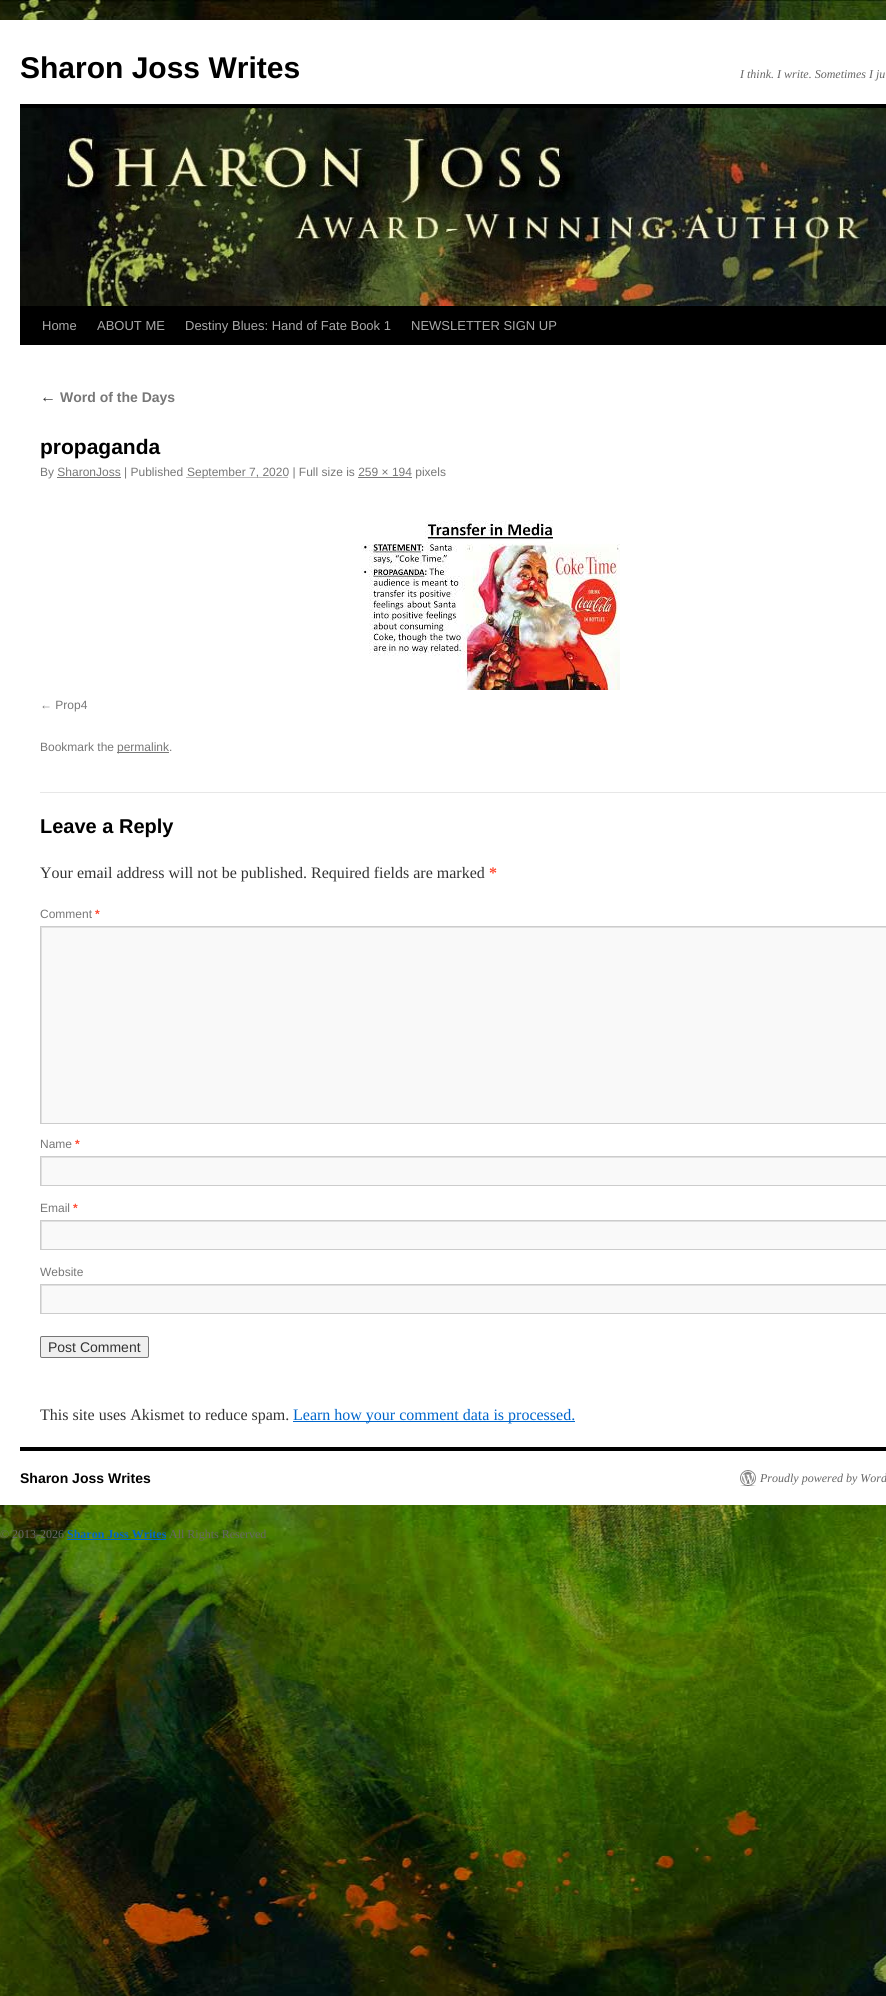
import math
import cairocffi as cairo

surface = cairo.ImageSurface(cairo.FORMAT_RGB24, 886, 1996)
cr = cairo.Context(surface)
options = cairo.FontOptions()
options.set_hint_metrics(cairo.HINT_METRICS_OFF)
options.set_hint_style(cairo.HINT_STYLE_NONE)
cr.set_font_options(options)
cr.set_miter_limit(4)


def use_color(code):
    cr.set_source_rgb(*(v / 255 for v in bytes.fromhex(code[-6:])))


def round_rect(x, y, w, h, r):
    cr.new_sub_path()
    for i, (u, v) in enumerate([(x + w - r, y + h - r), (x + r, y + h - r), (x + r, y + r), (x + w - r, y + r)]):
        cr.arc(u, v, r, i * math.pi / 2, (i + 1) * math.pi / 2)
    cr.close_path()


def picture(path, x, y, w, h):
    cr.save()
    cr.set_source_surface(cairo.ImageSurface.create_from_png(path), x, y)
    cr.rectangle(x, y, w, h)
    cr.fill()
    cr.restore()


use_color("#ffffff")
cr.paint()
picture("img1.png", 0, 0, 886, 1996)
use_color("#ffffff")
cr.rectangle(0, 20, 886, 1485)
cr.fill()
cr.select_font_face("Liberation Sans", cairo.FONT_SLANT_NORMAL, cairo.FONT_WEIGHT_BOLD)
cr.set_font_size(30)
use_color("#000000")
cr.move_to(20, 78)
cr.show_text("Sharon Joss Writes")
cr.select_font_face("Liberation Serif", cairo.FONT_SLANT_ITALIC)
cr.set_font_size(12)
use_color("#666666")
cr.move_to(740, 78)
cr.show_text("I think. I write. Sometimes I ju")
use_color("#000000")
cr.rectangle(20, 104, 866, 4)
cr.fill()
cr.rectangle(20, 306, 866, 39)
cr.fill()
picture("img2.png", 20, 108, 866, 198)
cr.select_font_face("Liberation Sans")
cr.set_font_size(13)
use_color("#aaaaaa")
cr.move_to(42, 330)
cr.show_text("Home")
cr.move_to(97, 330)
cr.show_text("ABOUT ME")
cr.move_to(185, 330)
cr.show_text("Destiny Blues: Hand of Fate Book 1")
cr.move_to(411, 330)
cr.show_text("NEWSLETTER SIGN UP")
cr.select_font_face("Liberation Serif", cairo.FONT_SLANT_ITALIC)
cr.set_font_size(16)
use_color("#333333")
cr.move_to(40, 402)
cr.show_text("←")
cr.select_font_face("Liberation Sans", cairo.FONT_SLANT_NORMAL, cairo.FONT_WEIGHT_BOLD)
cr.set_font_size(14)
use_color("#777777")
cr.move_to(60, 402)
cr.show_text("Word of the Days")
cr.set_font_size(21)
use_color("#000000")
cr.move_to(40, 454)
cr.show_text("propaganda")
cr.select_font_face("Liberation Sans")
cr.set_font_size(12)
use_color("#777777")
cr.move_to(40, 476)
cr.show_text("By SharonJoss | Published")
cr.new_path()
cr.move_to(186.5, 477.5)
cr.line_to(288.5, 477.5)
cr.set_line_width(1)
cr.set_dash([1, 1])
cr.stroke()
cr.move_to(187, 476)
cr.show_text("September 7, 2020 | Full size is 259 × 194 pixels")
cr.rectangle(57, 477, 64, 1)
cr.fill()
cr.rectangle(358, 477, 54, 1)
cr.fill()
picture("img3.png", 361, 520, 259, 170)
cr.move_to(40, 709)
cr.show_text("← Prop4")
cr.move_to(40, 751)
cr.show_text("Bookmark the")
cr.rectangle(117, 752, 52, 1)
cr.fill()
cr.move_to(117, 751)
cr.show_text("permalink.")
use_color("#e7e7e7")
cr.rectangle(40, 792, 846, 1)
cr.fill()
cr.select_font_face("Liberation Sans", cairo.FONT_SLANT_NORMAL, cairo.FONT_WEIGHT_BOLD)
cr.set_font_size(20)
use_color("#000000")
cr.move_to(40, 833)
cr.show_text("Leave a Reply")
cr.select_font_face("Liberation Serif")
cr.set_font_size(16)
use_color("#333333")
cr.move_to(40, 878)
cr.show_text("Your email address will not be published. Required fields are marked")
cr.select_font_face("Liberation Serif", cairo.FONT_SLANT_NORMAL, cairo.FONT_WEIGHT_BOLD)
use_color("#ff4b33")
cr.move_to(489, 878)
cr.show_text("*")
cr.select_font_face("Liberation Sans")
cr.set_font_size(12)
use_color("#777777")
cr.move_to(40, 918)
cr.show_text("Comment")
cr.select_font_face("Liberation Sans", cairo.FONT_SLANT_NORMAL, cairo.FONT_WEIGHT_BOLD)
use_color("#ff4b33")
cr.move_to(95, 918)
cr.show_text("*")
use_color("#f9f9f9")
cr.rectangle(42, 928, 844, 195)
cr.fill()
cr.save()
cr.rectangle(41, 927, 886, 196)
cr.clip()
use_color("#e0e0e0")
cr.set_fill_rule(cairo.FILL_RULE_EVEN_ODD)
cr.new_path()
cr.move_to(-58, 828)
cr.line_to(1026, 828)
cr.line_to(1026, 1222)
cr.line_to(-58, 1222)
cr.close_path()
cr.move_to(42, 928)
cr.line_to(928, 928)
cr.line_to(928, 1124)
cr.line_to(42, 1124)
cr.close_path()
cr.fill()
cr.restore()
cr.rectangle(40.5, 926.5, 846, 197)
use_color("#cccccc")
cr.set_dash([])
cr.stroke()
cr.select_font_face("Liberation Sans")
use_color("#777777")
cr.move_to(40, 1148)
cr.show_text("Name")
cr.select_font_face("Liberation Sans", cairo.FONT_SLANT_NORMAL, cairo.FONT_WEIGHT_BOLD)
use_color("#ff4b33")
cr.move_to(75, 1148)
cr.show_text("*")
use_color("#f9f9f9")
cr.rectangle(42, 1158, 844, 27)
cr.fill()
cr.save()
cr.rectangle(41, 1157, 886, 28)
cr.clip()
use_color("#e0e0e0")
cr.set_fill_rule(cairo.FILL_RULE_EVEN_ODD)
cr.new_path()
cr.move_to(-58, 1058)
cr.line_to(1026, 1058)
cr.line_to(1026, 1284)
cr.line_to(-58, 1284)
cr.close_path()
cr.move_to(42, 1158)
cr.line_to(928, 1158)
cr.line_to(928, 1186)
cr.line_to(42, 1186)
cr.close_path()
cr.fill()
cr.restore()
cr.rectangle(40.5, 1156.5, 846, 29)
use_color("#cccccc")
cr.stroke()
cr.select_font_face("Liberation Sans")
use_color("#777777")
cr.move_to(40, 1212)
cr.show_text("Email")
cr.select_font_face("Liberation Sans", cairo.FONT_SLANT_NORMAL, cairo.FONT_WEIGHT_BOLD)
use_color("#ff4b33")
cr.move_to(73, 1212)
cr.show_text("*")
use_color("#f9f9f9")
cr.rectangle(42, 1222, 844, 27)
cr.fill()
cr.save()
cr.rectangle(41, 1221, 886, 28)
cr.clip()
use_color("#e0e0e0")
cr.set_fill_rule(cairo.FILL_RULE_EVEN_ODD)
cr.new_path()
cr.move_to(-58, 1122)
cr.line_to(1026, 1122)
cr.line_to(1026, 1348)
cr.line_to(-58, 1348)
cr.close_path()
cr.move_to(42, 1222)
cr.line_to(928, 1222)
cr.line_to(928, 1250)
cr.line_to(42, 1250)
cr.close_path()
cr.fill()
cr.restore()
cr.rectangle(40.5, 1220.5, 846, 29)
use_color("#cccccc")
cr.stroke()
cr.select_font_face("Liberation Sans")
use_color("#777777")
cr.move_to(40, 1276)
cr.show_text("Website")
use_color("#f9f9f9")
cr.rectangle(42, 1286, 844, 27)
cr.fill()
cr.save()
cr.rectangle(41, 1285, 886, 28)
cr.clip()
use_color("#e0e0e0")
cr.set_fill_rule(cairo.FILL_RULE_EVEN_ODD)
cr.new_path()
cr.move_to(-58, 1186)
cr.line_to(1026, 1186)
cr.line_to(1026, 1412)
cr.line_to(-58, 1412)
cr.close_path()
cr.move_to(42, 1286)
cr.line_to(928, 1286)
cr.line_to(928, 1314)
cr.line_to(42, 1314)
cr.close_path()
cr.fill()
cr.restore()
cr.rectangle(40.5, 1284.5, 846, 29)
use_color("#cccccc")
cr.stroke()
use_color("#efefef")
round_rect(40.5, 1336.5, 108, 21, 1.5)
cr.fill_preserve()
use_color("#767676")
cr.stroke()
cr.set_font_size(14)
use_color("#333333")
cr.move_to(48, 1352)
cr.show_text("Post Comment")
cr.select_font_face("Liberation Serif")
cr.set_font_size(16)
cr.move_to(40, 1420)
cr.show_text("This site uses Akismet to reduce spam.")
use_color("#0066cc")
cr.rectangle(293, 1421, 282, 1)
cr.fill()
cr.move_to(293, 1420)
cr.show_text("Learn how your comment data is processed.")
use_color("#000000")
cr.rectangle(20, 1447, 866, 4)
cr.fill()
cr.select_font_face("Liberation Sans", cairo.FONT_SLANT_NORMAL, cairo.FONT_WEIGHT_BOLD)
cr.set_font_size(14)
cr.move_to(20, 1483)
cr.show_text("Sharon Joss Writes")
picture("img4.png", 740, 1470, 16, 16)
cr.select_font_face("Liberation Serif", cairo.FONT_SLANT_ITALIC)
cr.set_font_size(12)
use_color("#666666")
cr.move_to(760, 1482)
cr.show_text("Proudly powered by Word")
cr.select_font_face("Liberation Serif")
cr.move_to(0, 1538)
cr.show_text("© 2013-2026")
cr.select_font_face("Liberation Serif", cairo.FONT_SLANT_NORMAL, cairo.FONT_WEIGHT_BOLD)
use_color("#0066cc")
cr.move_to(67, 1538)
cr.show_text("Sharon Joss Writes")
cr.rectangle(67, 1539, 99, 1)
cr.fill()
cr.select_font_face("Liberation Serif")
use_color("#666666")
cr.move_to(169, 1538)
cr.show_text("All Rights Reserved")
surface.write_to_png("result.png")
